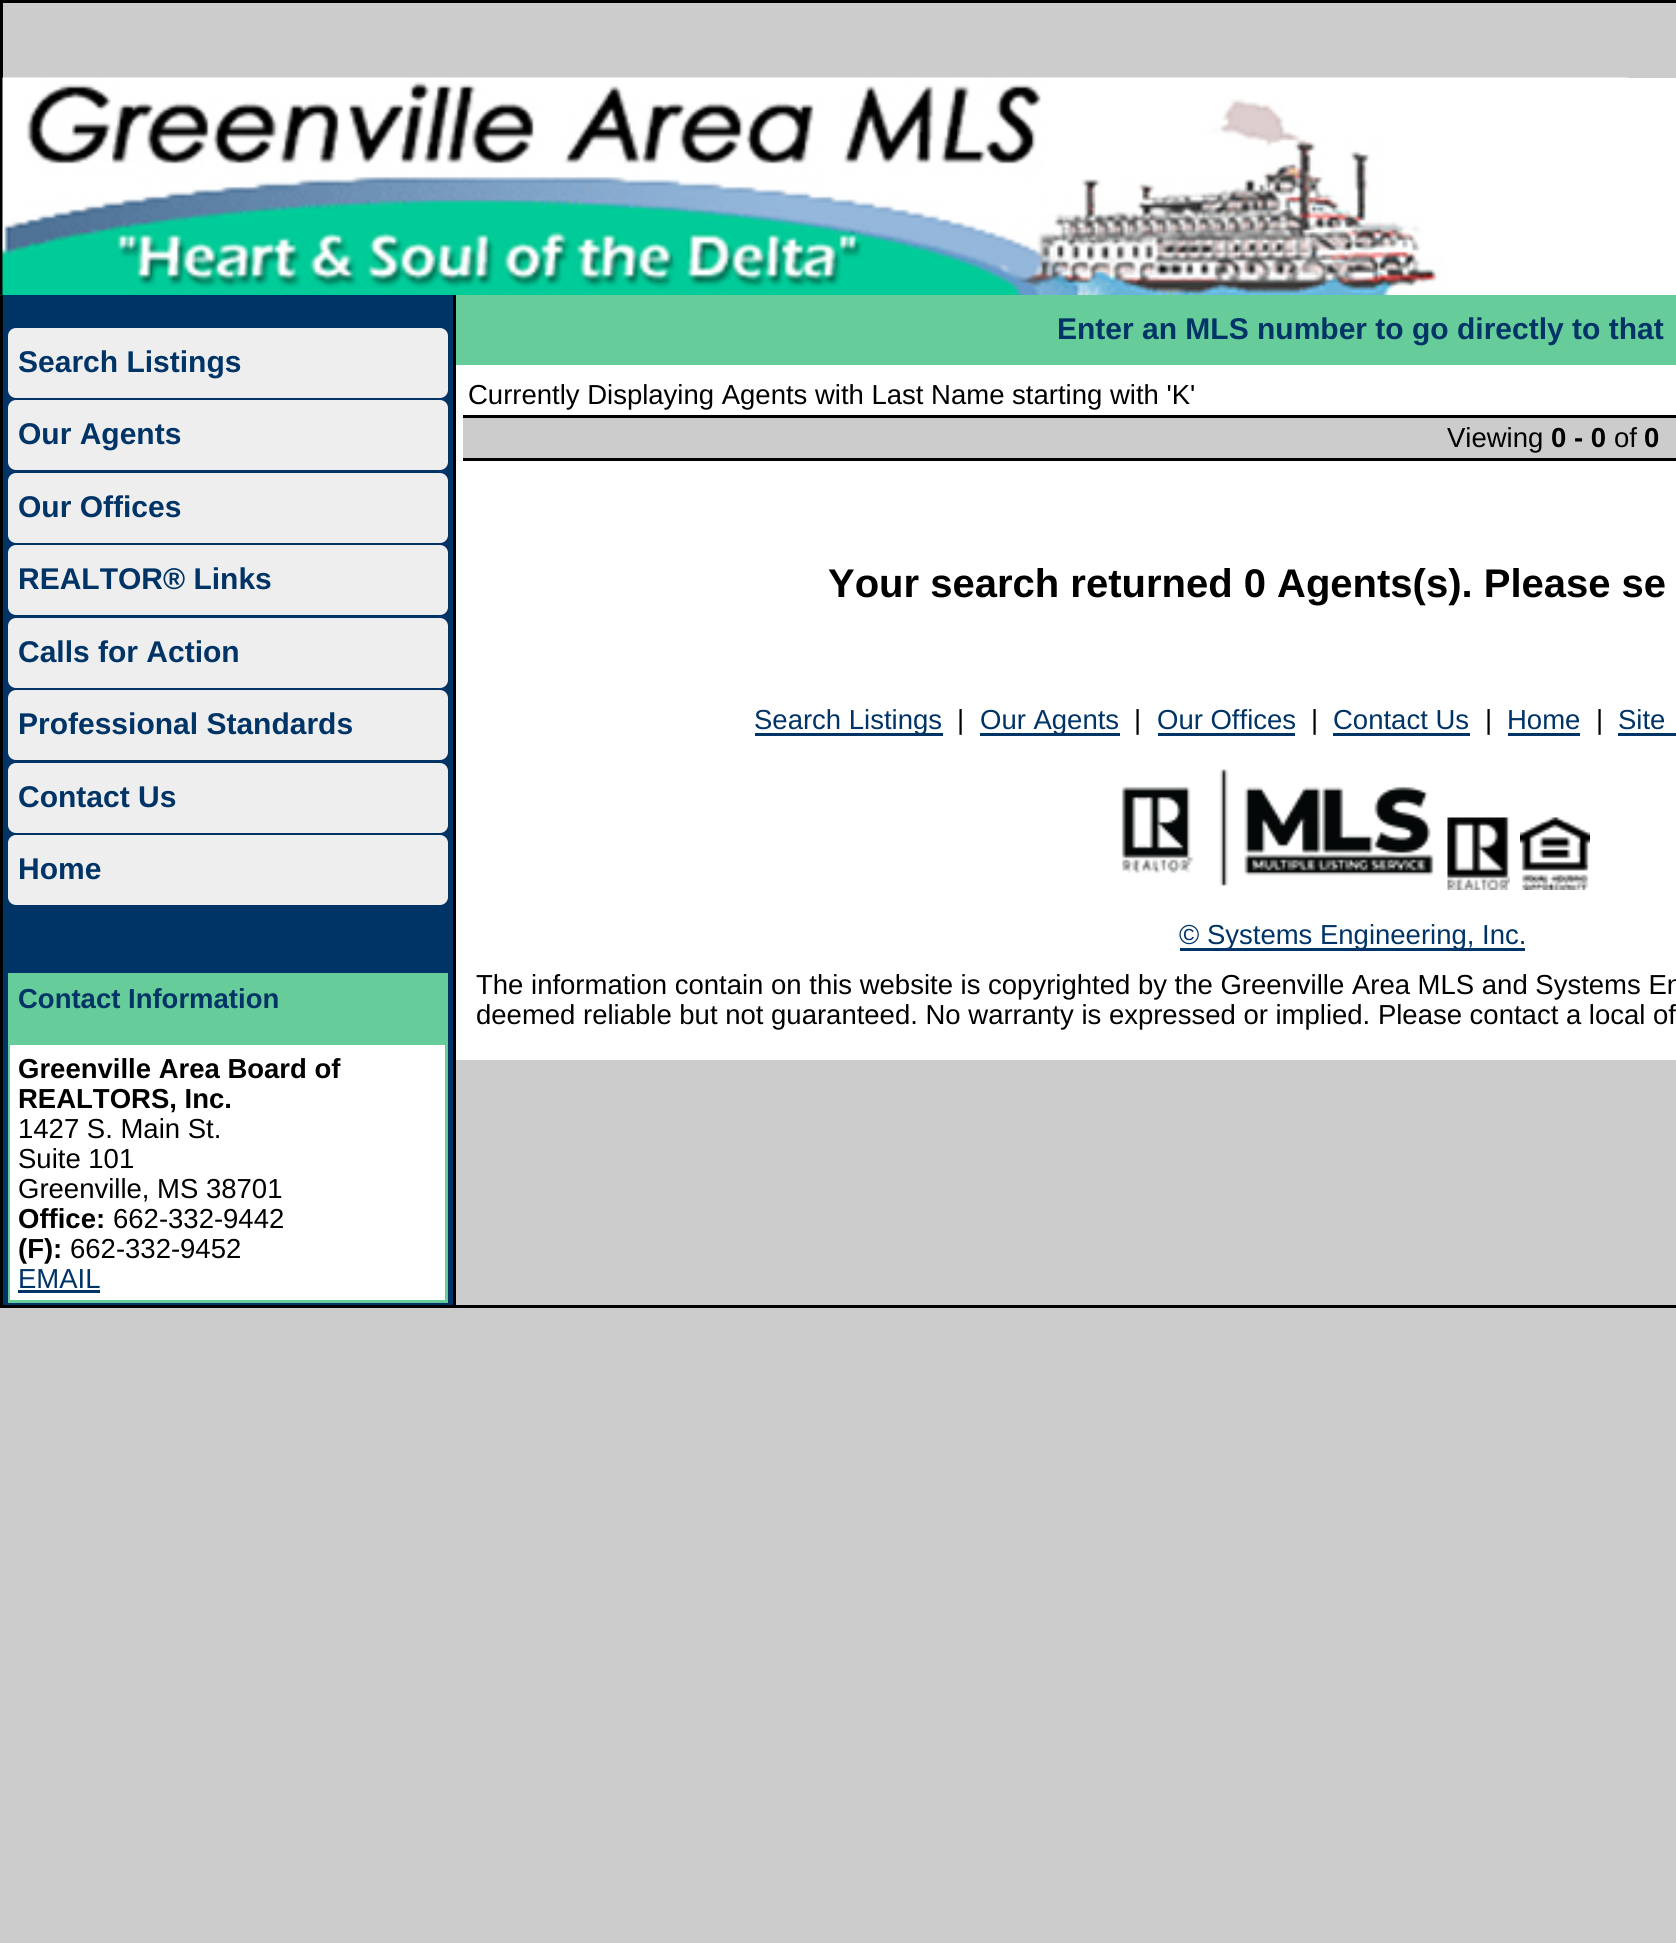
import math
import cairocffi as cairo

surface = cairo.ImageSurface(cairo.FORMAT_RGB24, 1676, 1943)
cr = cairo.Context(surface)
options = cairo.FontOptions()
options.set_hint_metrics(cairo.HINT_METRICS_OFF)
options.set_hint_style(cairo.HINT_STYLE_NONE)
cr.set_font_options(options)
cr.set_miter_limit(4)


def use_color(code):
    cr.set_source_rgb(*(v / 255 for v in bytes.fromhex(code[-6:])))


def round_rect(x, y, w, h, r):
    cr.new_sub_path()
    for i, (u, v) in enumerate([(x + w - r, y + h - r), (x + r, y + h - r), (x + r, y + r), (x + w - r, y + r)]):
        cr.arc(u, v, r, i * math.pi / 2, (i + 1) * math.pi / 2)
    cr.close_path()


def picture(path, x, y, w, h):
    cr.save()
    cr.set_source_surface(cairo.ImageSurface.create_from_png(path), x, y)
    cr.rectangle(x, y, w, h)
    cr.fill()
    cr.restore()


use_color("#cccccc")
cr.paint()
cr.rectangle(1.5, 1.5, 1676, 1305)
use_color("#000000")
cr.set_line_width(3)
cr.stroke()
use_color("#ffffff")
cr.rectangle(1627, 78, 49, 217)
cr.fill()
picture("img1.png", 2, 77, 1626, 218)
use_color("#003366")
cr.rectangle(3, 295, 450, 1010)
cr.fill()
use_color("#000000")
cr.rectangle(453, 295, 3, 1010)
cr.fill()
use_color("#eeeeee")
round_rect(8, 328, 440, 70, 8)
cr.fill()
cr.select_font_face("Liberation Sans", cairo.FONT_SLANT_NORMAL, cairo.FONT_WEIGHT_BOLD)
cr.set_font_size(30)
use_color("#003366")
cr.move_to(18, 372)
cr.show_text("Search Listings")
use_color("#eeeeee")
round_rect(8, 400, 440, 70, 8)
cr.fill()
use_color("#003366")
cr.move_to(18, 444)
cr.show_text("Our Agents")
use_color("#eeeeee")
round_rect(8, 473, 440, 70, 8)
cr.fill()
use_color("#003366")
cr.move_to(18, 517)
cr.show_text("Our Offices")
use_color("#eeeeee")
round_rect(8, 545, 440, 70, 8)
cr.fill()
use_color("#003366")
cr.move_to(18, 589)
cr.show_text("REALTOR® Links")
use_color("#eeeeee")
round_rect(8, 618, 440, 70, 8)
cr.fill()
use_color("#003366")
cr.move_to(18, 662)
cr.show_text("Calls for Action")
use_color("#eeeeee")
round_rect(8, 690, 440, 70, 8)
cr.fill()
use_color("#003366")
cr.move_to(18, 734)
cr.show_text("Professional Standards")
use_color("#eeeeee")
round_rect(8, 763, 440, 70, 8)
cr.fill()
use_color("#003366")
cr.move_to(18, 807)
cr.show_text("Contact Us")
use_color("#eeeeee")
round_rect(8, 835, 440, 70, 8)
cr.fill()
use_color("#003366")
cr.move_to(18, 879)
cr.show_text("Home")
use_color("#66cc99")
cr.rectangle(8, 973, 440, 70)
cr.fill()
cr.set_font_size(27.5)
use_color("#003366")
cr.move_to(18, 1008)
cr.show_text("Contact Information")
cr.rectangle(9.5, 1044.5, 437, 257)
use_color("#66cc99")
cr.stroke()
use_color("#ffffff")
cr.rectangle(10, 1045, 435, 255)
cr.fill()
use_color("#000000")
cr.move_to(18, 1078)
cr.show_text("Greenville Area Board of")
cr.move_to(18, 1108)
cr.show_text("REALTORS, Inc.")
cr.select_font_face("Liberation Sans")
cr.move_to(18, 1138)
cr.show_text("1427 S. Main St.")
cr.move_to(18, 1168)
cr.show_text("Suite 101")
cr.move_to(18, 1198)
cr.show_text("Greenville, MS 38701")
cr.select_font_face("Liberation Sans", cairo.FONT_SLANT_NORMAL, cairo.FONT_WEIGHT_BOLD)
cr.move_to(18, 1228)
cr.show_text("Office:")
cr.select_font_face("Liberation Sans")
cr.move_to(113, 1228)
cr.show_text("662-332-9442")
cr.select_font_face("Liberation Sans", cairo.FONT_SLANT_NORMAL, cairo.FONT_WEIGHT_BOLD)
cr.move_to(18, 1258)
cr.show_text("(F):")
cr.select_font_face("Liberation Sans")
cr.move_to(70, 1258)
cr.show_text("662-332-9452")
use_color("#003366")
cr.move_to(18, 1288)
cr.show_text("EMAIL")
cr.rectangle(18, 1290, 82, 3)
cr.fill()
use_color("#ffffff")
cr.rectangle(456, 365, 1220, 695)
cr.fill()
use_color("#66cc99")
cr.rectangle(456, 295, 1220, 70)
cr.fill()
cr.select_font_face("Liberation Sans", cairo.FONT_SLANT_NORMAL, cairo.FONT_WEIGHT_BOLD)
cr.set_font_size(30)
use_color("#003366")
cr.move_to(1057, 339)
cr.show_text("Enter an MLS number to go directly to that")
cr.select_font_face("Liberation Sans")
cr.set_font_size(27.5)
use_color("#000000")
cr.move_to(468, 404)
cr.show_text("Currently Displaying Agents with Last Name starting with 'K'")
use_color("#cccccc")
cr.rectangle(463, 418, 1213, 40)
cr.fill()
use_color("#000000")
cr.rectangle(463, 415, 1213, 3)
cr.fill()
cr.rectangle(463, 458, 1213, 3)
cr.fill()
cr.move_to(1447, 447)
cr.show_text("Viewing")
cr.select_font_face("Liberation Sans", cairo.FONT_SLANT_NORMAL, cairo.FONT_WEIGHT_BOLD)
cr.move_to(1551, 447)
cr.show_text("0 - 0")
cr.select_font_face("Liberation Sans")
cr.move_to(1614, 447)
cr.show_text("of")
cr.select_font_face("Liberation Sans", cairo.FONT_SLANT_NORMAL, cairo.FONT_WEIGHT_BOLD)
cr.move_to(1644, 447)
cr.show_text("0")
cr.set_font_size(40)
cr.move_to(828, 597)
cr.show_text("Your search returned 0 Agents(s). Please se")
use_color("#003366")
cr.rectangle(755, 733, 188, 3)
cr.fill()
cr.select_font_face("Liberation Sans")
cr.set_font_size(27.5)
cr.move_to(754, 729)
cr.show_text("Search Listings")
use_color("#000000")
cr.move_to(957, 729)
cr.show_text("|")
use_color("#003366")
cr.rectangle(980, 733, 140, 3)
cr.fill()
cr.move_to(980, 729)
cr.show_text("Our Agents")
use_color("#000000")
cr.move_to(1134, 729)
cr.show_text("|")
use_color("#003366")
cr.move_to(1157, 729)
cr.show_text("Our Offices")
cr.rectangle(1158, 733, 137, 3)
cr.fill()
use_color("#000000")
cr.move_to(1311, 729)
cr.show_text("|")
use_color("#003366")
cr.move_to(1333, 729)
cr.show_text("Contact Us")
cr.rectangle(1333, 733, 137, 3)
cr.fill()
use_color("#000000")
cr.move_to(1485, 729)
cr.show_text("|")
use_color("#003366")
cr.move_to(1507, 729)
cr.show_text("Home")
cr.rectangle(1508, 733, 72, 3)
cr.fill()
use_color("#000000")
cr.move_to(1596, 729)
cr.show_text("|")
use_color("#003366")
cr.move_to(1618, 729)
cr.show_text("Site")
cr.rectangle(1618, 733, 58, 3)
cr.fill()
picture("img2.png", 1121, 769, 313, 117)
picture("img3.png", 1447, 817, 63, 73)
picture("img4.png", 1520, 817, 70, 73)
cr.rectangle(1180, 948, 345, 3)
cr.fill()
cr.move_to(1179, 944)
cr.show_text("© Systems Engineering, Inc.")
use_color("#000000")
cr.move_to(476, 994)
cr.show_text("The information contain on this website is copyrighted by the Greenville Area MLS and Systems En")
cr.move_to(476, 1024)
cr.show_text("deemed reliable but not guaranteed. No warranty is expressed or implied. Please contact a local of")
surface.write_to_png("result.png")
